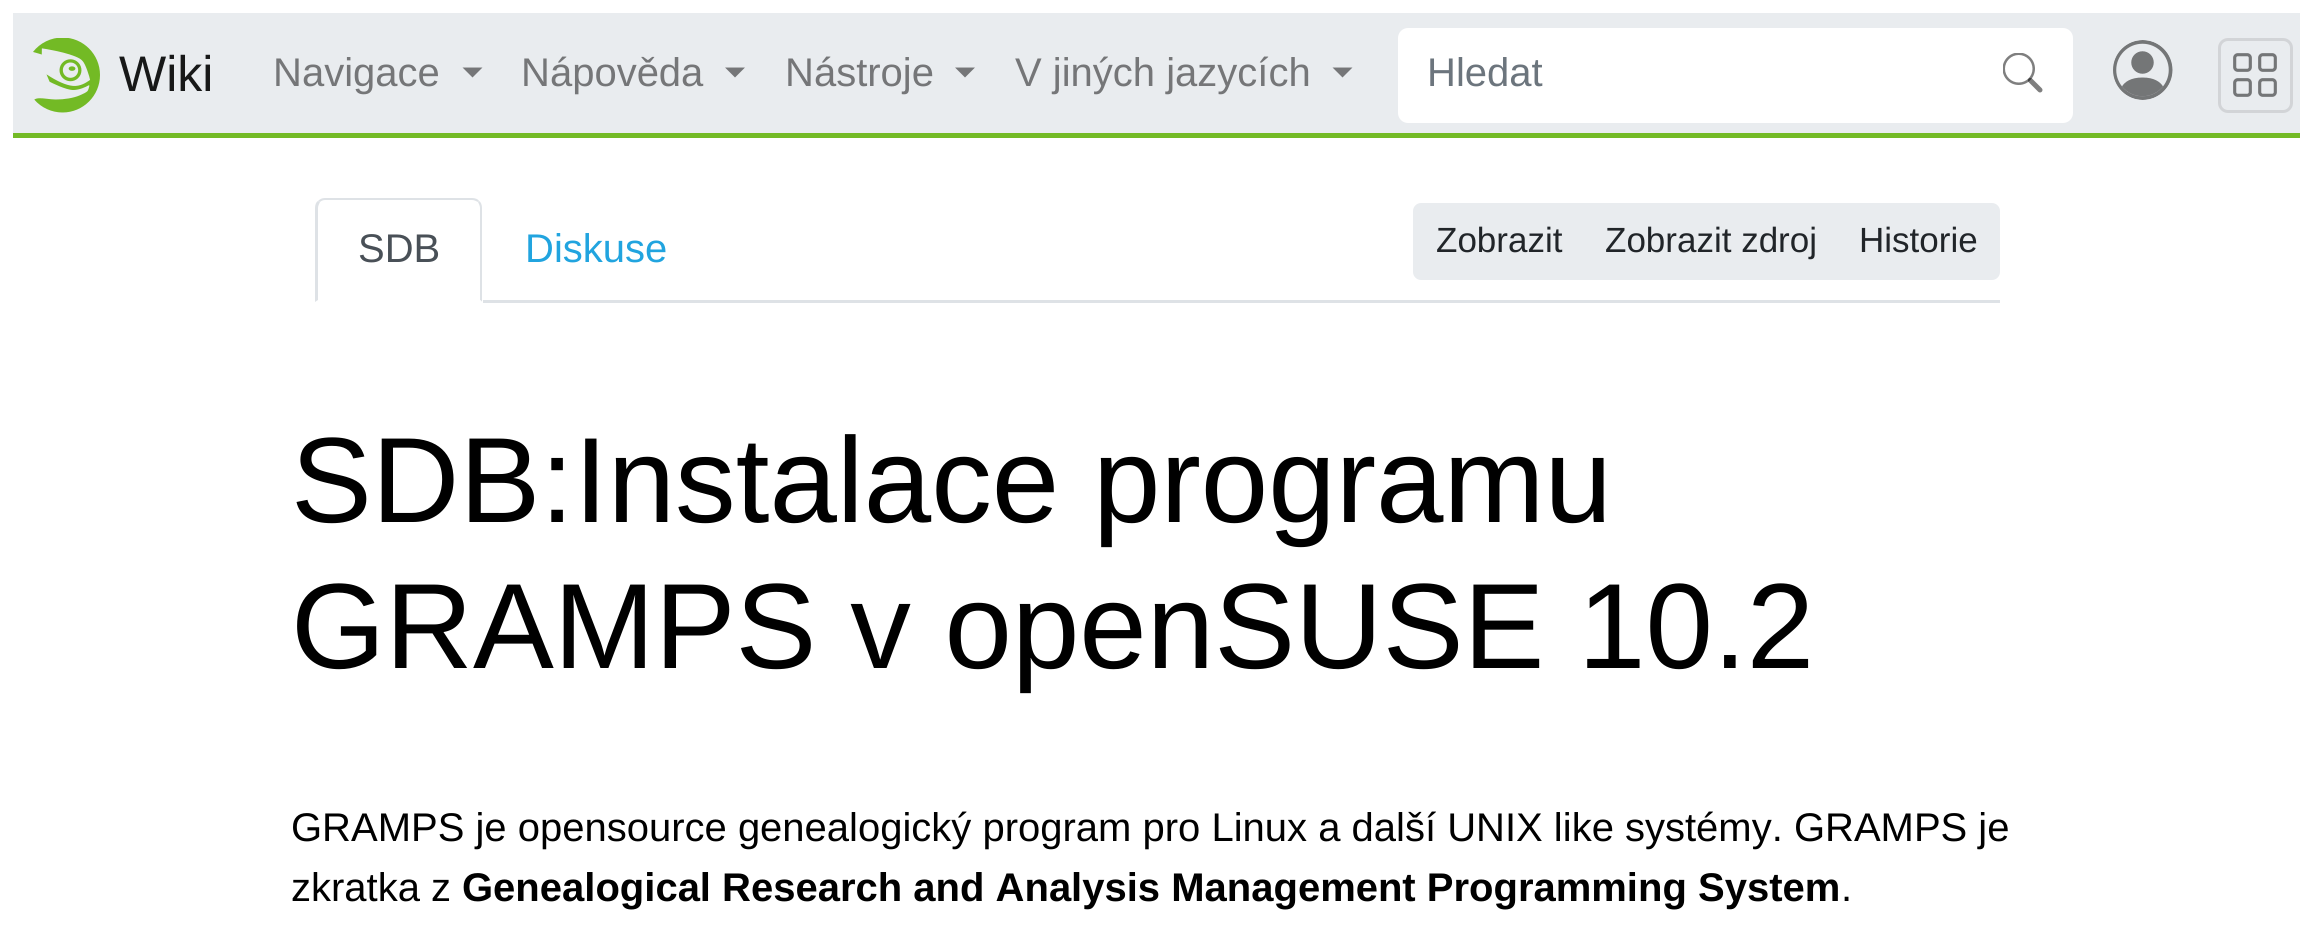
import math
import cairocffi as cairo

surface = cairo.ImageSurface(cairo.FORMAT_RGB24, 2307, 941)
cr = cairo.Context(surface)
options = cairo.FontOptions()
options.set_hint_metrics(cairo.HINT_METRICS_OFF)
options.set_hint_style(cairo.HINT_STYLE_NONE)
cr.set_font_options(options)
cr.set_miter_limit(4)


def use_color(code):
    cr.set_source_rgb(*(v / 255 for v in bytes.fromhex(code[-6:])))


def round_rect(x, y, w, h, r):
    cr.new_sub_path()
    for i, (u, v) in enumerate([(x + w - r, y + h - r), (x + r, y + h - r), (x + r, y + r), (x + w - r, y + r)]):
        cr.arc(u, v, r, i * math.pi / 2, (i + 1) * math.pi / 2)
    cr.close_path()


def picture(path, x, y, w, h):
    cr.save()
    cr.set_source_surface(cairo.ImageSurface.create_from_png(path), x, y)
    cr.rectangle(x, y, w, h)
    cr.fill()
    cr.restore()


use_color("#ffffff")
cr.paint()
use_color("#e9ecef")
cr.rectangle(13, 13, 2287, 120)
cr.fill()
use_color("#73ba25")
cr.rectangle(13, 133, 2287, 5)
cr.fill()
picture("img1.png", 33, 38, 67, 75)
cr.select_font_face("Liberation Sans")
cr.set_font_size(50)
use_color("#171818")
cr.move_to(119, 91)
cr.show_text("Wiki")
cr.set_font_size(40)
use_color("#757678")
cr.move_to(273, 86)
cr.show_text("Navigace")
cr.new_path()
cr.move_to(462.5, 67.5)
cr.line_to(482.5, 67.5)
cr.line_to(472.5, 77.5)
cr.close_path()
cr.fill()
cr.move_to(521, 86)
cr.show_text("Nápověda")
cr.new_path()
cr.move_to(725, 67.5)
cr.line_to(745, 67.5)
cr.line_to(735, 77.5)
cr.close_path()
cr.fill()
cr.move_to(785, 86)
cr.show_text("Nástroje")
cr.new_path()
cr.move_to(955, 67.5)
cr.line_to(975, 67.5)
cr.line_to(965, 77.5)
cr.close_path()
cr.fill()
cr.move_to(1015, 86)
cr.show_text("V jiných jazycích")
cr.new_path()
cr.move_to(1332.5, 67.5)
cr.line_to(1352.5, 67.5)
cr.line_to(1342.5, 77.5)
cr.close_path()
cr.fill()
use_color("#ffffff")
cr.new_path()
cr.move_to(1408, 28)
cr.line_to(1975, 28)
cr.line_to(1975, 123)
cr.line_to(1408, 123)
cr.curve_to(1402.5, 123, 1398, 118.5, 1398, 113)
cr.line_to(1398, 38)
cr.curve_to(1398, 32.5, 1402.5, 28, 1408, 28)
cr.close_path()
cr.fill()
use_color("#6c757d")
cr.move_to(1427, 86)
cr.show_text("Hledat")
use_color("#ffffff")
cr.new_path()
cr.move_to(1973, 28)
cr.line_to(2063, 28)
cr.curve_to(2068.5, 28, 2073, 32.5, 2073, 38)
cr.line_to(2073, 113)
cr.curve_to(2073, 118.5, 2068.5, 123, 2063, 123)
cr.line_to(1973, 123)
cr.close_path()
cr.fill()
picture("img2.png", 2003, 53, 40, 40)
picture("img3.png", 2113, 40, 60, 60)
round_rect(2219.5, 39.5, 72, 72, 8.5)
use_color("#d2d4d7")
cr.set_line_width(3)
cr.stroke()
picture("img4.png", 2233, 53, 44, 44)
use_color("#dee2e6")
cr.rectangle(483, 300, 1517, 3)
cr.fill()
cr.new_path()
cr.move_to(325, 198)
cr.curve_to(322, 198, 320, 199, 318, 201)
cr.line_to(320, 202)
cr.curve_to(321, 201, 323, 200, 325, 200)
cr.line_to(472, 200)
cr.curve_to(474, 200, 476, 201, 478, 202)
cr.line_to(479, 201)
cr.curve_to(478, 199, 475, 198, 472, 198)
cr.close_path()
cr.fill()
cr.new_path()
cr.move_to(482, 302)
cr.line_to(482, 208)
cr.curve_to(482, 205, 481, 202, 479, 201)
cr.line_to(478, 202)
cr.curve_to(479, 204, 480, 206, 480, 208)
cr.line_to(480, 300)
cr.close_path()
cr.fill()
use_color("#ffffff")
cr.new_path()
cr.move_to(482, 302)
cr.line_to(480, 300)
cr.line_to(318, 300)
cr.line_to(316, 302)
cr.close_path()
cr.fill()
use_color("#dee2e6")
cr.new_path()
cr.move_to(315, 208)
cr.line_to(315, 302)
cr.line_to(318, 300)
cr.line_to(318, 208)
cr.curve_to(318, 206, 319, 204, 320, 202)
cr.line_to(318, 201)
cr.curve_to(316, 202, 315, 205, 315, 208)
cr.close_path()
cr.fill()
use_color("#495057")
cr.move_to(358, 262)
cr.show_text("SDB")
use_color("#21a4df")
cr.move_to(525, 262)
cr.show_text("Diskuse")
use_color("#e9ecef")
cr.new_path()
cr.move_to(1421, 204.5)
cr.line_to(1583.5, 204.5)
cr.line_to(1583.5, 278.5)
cr.line_to(1421, 278.5)
cr.curve_to(1417.5, 278.5, 1414.5, 275.5, 1414.5, 272)
cr.line_to(1414.5, 211)
cr.curve_to(1414.5, 207.5, 1417.5, 204.5, 1421, 204.5)
cr.close_path()
cr.fill_preserve()
cr.stroke()
cr.set_font_size(35)
use_color("#212529")
cr.move_to(1436, 252)
cr.show_text("Zobrazit")
use_color("#e9ecef")
cr.rectangle(1585, 203, 253, 77)
cr.fill()
use_color("#212529")
cr.move_to(1605, 252)
cr.show_text("Zobrazit zdroj")
use_color("#e9ecef")
cr.new_path()
cr.move_to(1839.5, 204.5)
cr.line_to(1992, 204.5)
cr.curve_to(1995.5, 204.5, 1998.5, 207.5, 1998.5, 211)
cr.line_to(1998.5, 272)
cr.curve_to(1998.5, 275.5, 1995.5, 278.5, 1992, 278.5)
cr.line_to(1839.5, 278.5)
cr.close_path()
cr.fill_preserve()
cr.stroke()
use_color("#212529")
cr.move_to(1859, 252)
cr.show_text("Historie")
cr.set_font_size(121.25)
use_color("#000000")
cr.move_to(291, 522)
cr.show_text("SDB:Instalace programu")
cr.move_to(291, 668)
cr.show_text("GRAMPS v openSUSE 10.2")
cr.set_font_size(40)
cr.move_to(291, 841)
cr.show_text("GRAMPS je opensource genealogický program pro Linux a další UNIX like systémy. GRAMPS je")
cr.move_to(291, 901)
cr.show_text("zkratka z")
cr.select_font_face("Liberation Sans", cairo.FONT_SLANT_NORMAL, cairo.FONT_WEIGHT_BOLD)
cr.move_to(462, 901)
cr.show_text("Genealogical Research and Analysis Management Programming System")
cr.select_font_face("Liberation Sans")
cr.move_to(1841, 901)
cr.show_text(".")
surface.write_to_png("result.png")
